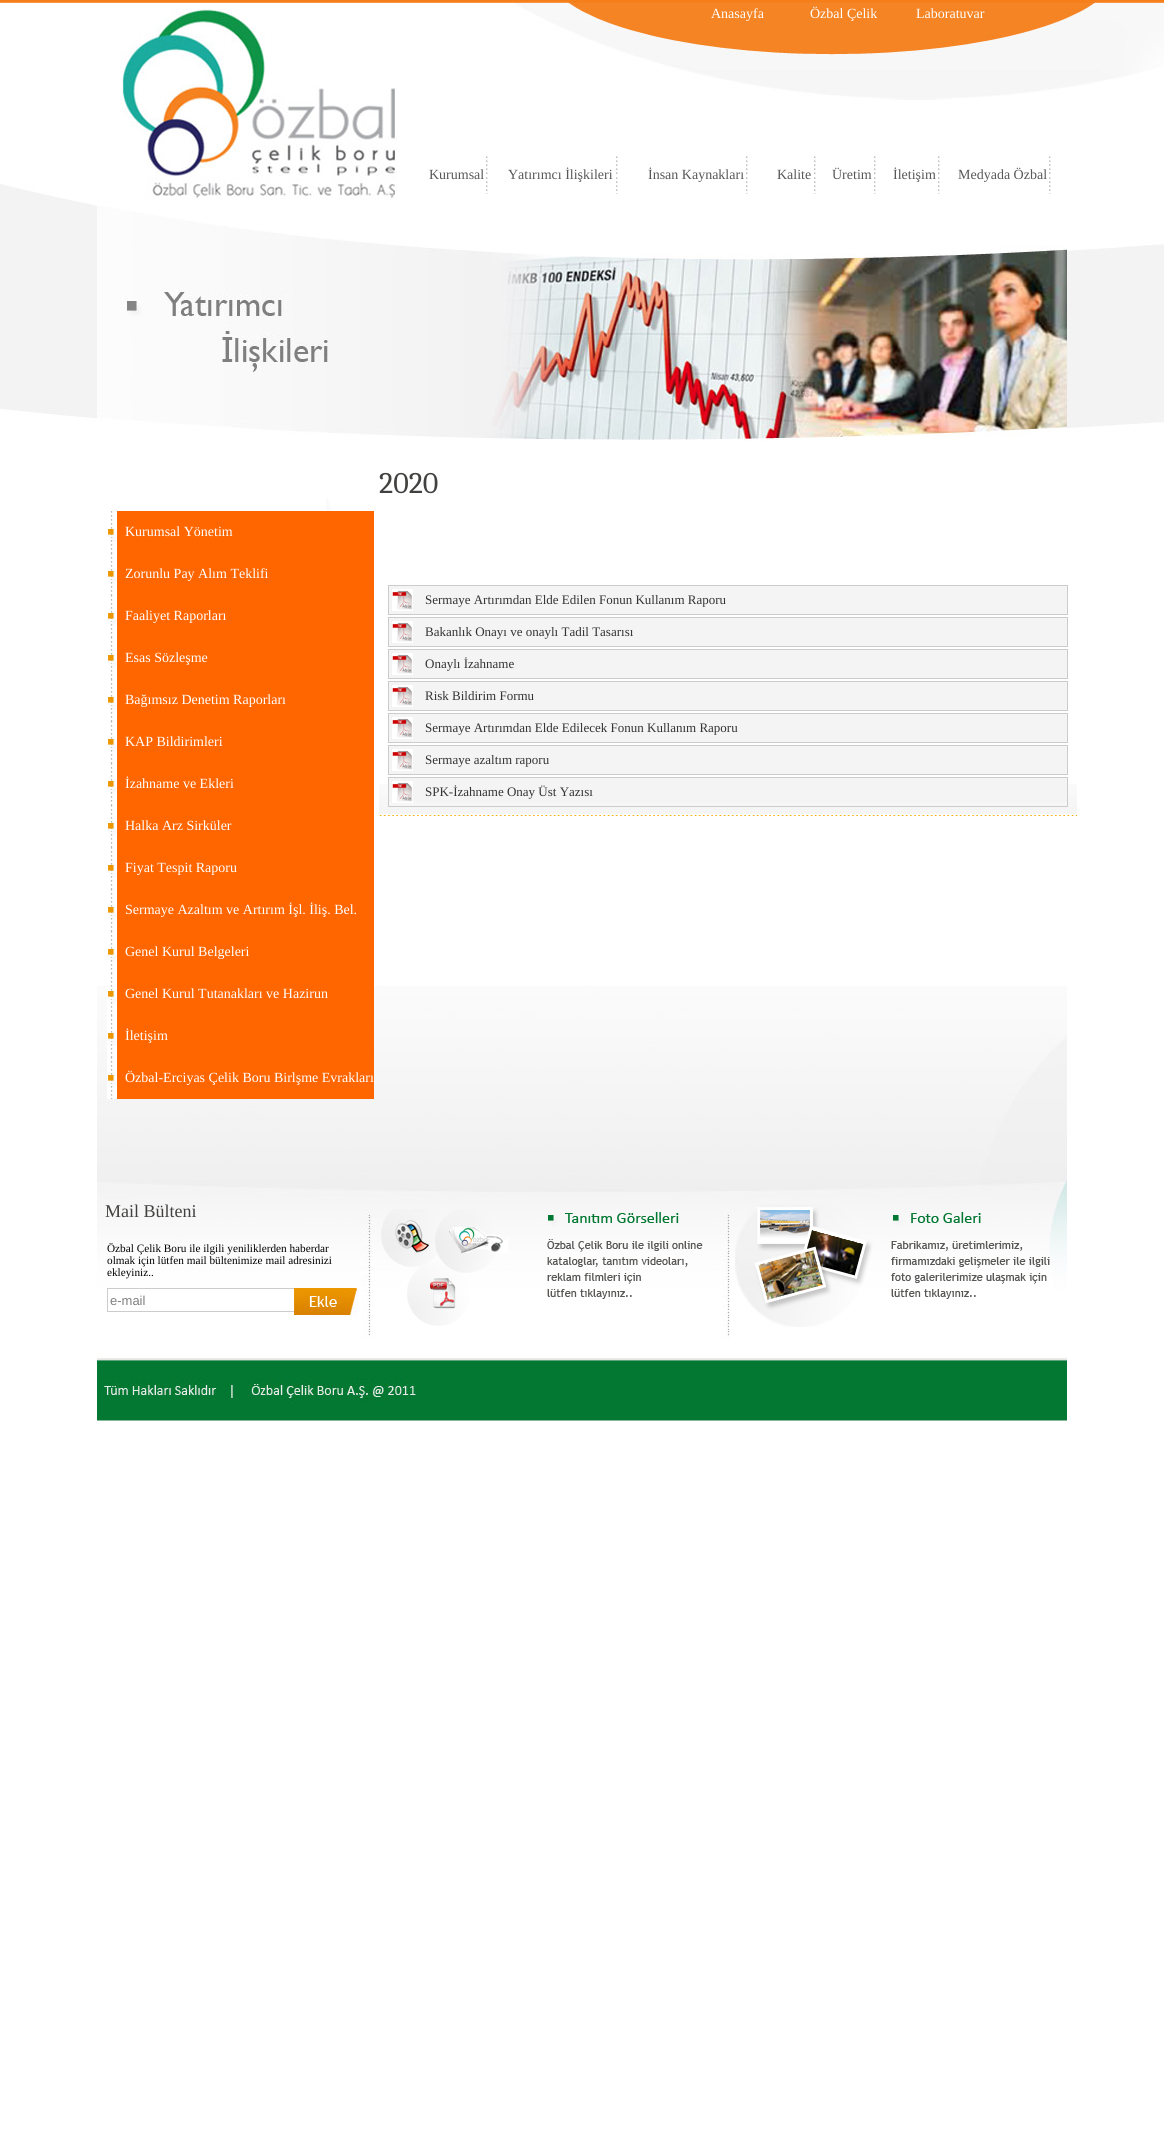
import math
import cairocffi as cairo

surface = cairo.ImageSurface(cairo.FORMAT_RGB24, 1164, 2153)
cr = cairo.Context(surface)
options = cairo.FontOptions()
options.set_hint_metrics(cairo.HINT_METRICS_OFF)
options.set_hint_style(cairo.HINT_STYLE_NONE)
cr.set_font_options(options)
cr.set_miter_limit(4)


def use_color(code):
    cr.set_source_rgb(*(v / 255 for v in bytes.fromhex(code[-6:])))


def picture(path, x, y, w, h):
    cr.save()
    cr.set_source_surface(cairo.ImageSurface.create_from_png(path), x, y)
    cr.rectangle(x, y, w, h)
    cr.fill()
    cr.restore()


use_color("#ffffff")
cr.paint()
picture("img1.png", 0, 0, 1164, 441)
picture("img2.png", 97, 986, 970, 435)
cr.select_font_face("Liberation Serif")
cr.set_font_size(14)
use_color("#ffffff")
cr.move_to(711, 18)
cr.show_text("Anasayfa")
cr.move_to(810, 18)
cr.show_text("Özbal Çelik")
cr.move_to(916, 18)
cr.show_text("Laboratuvar")
picture("img3.png", 122, 9, 275, 190)
picture("img4.png", 486, 156, 2, 38)
use_color("#575757")
cr.move_to(429, 179)
cr.show_text("Kurumsal")
picture("img4.png", 616, 156, 2, 38)
cr.move_to(508, 179)
cr.show_text("Yatırımcı İlişkileri")
picture("img4.png", 746, 156, 2, 38)
cr.move_to(648, 179)
cr.show_text("İnsan Kaynakları")
picture("img4.png", 814, 156, 2, 38)
cr.move_to(777, 179)
cr.show_text("Kalite")
picture("img4.png", 874, 156, 2, 38)
cr.move_to(832, 179)
cr.show_text("Üretim")
picture("img4.png", 938, 156, 2, 38)
cr.move_to(893, 179)
cr.show_text("İletişim")
picture("img4.png", 1049, 156, 2, 38)
cr.move_to(958, 179)
cr.show_text("Medyada Özbal")
picture("img5.png", 97, 206, 970, 235)
picture("img6.png", 326, 497, 5, 14)
picture("img7.png", 107, 511, 10, 42)
use_color("#ff6600")
cr.rectangle(117, 511, 257, 588)
cr.fill()
use_color("#ffffff")
cr.move_to(125, 536)
cr.show_text("Kurumsal Yönetim")
picture("img7.png", 107, 553, 10, 42)
cr.move_to(125, 578)
cr.show_text("Zorunlu Pay Alım Teklifi")
picture("img7.png", 107, 595, 10, 42)
cr.move_to(125, 620)
cr.show_text("Faaliyet Raporları")
picture("img7.png", 107, 637, 10, 42)
cr.move_to(125, 662)
cr.show_text("Esas Sözleşme")
picture("img7.png", 107, 679, 10, 42)
cr.move_to(125, 704)
cr.show_text("Bağımsız Denetim Raporları")
picture("img7.png", 107, 721, 10, 42)
cr.move_to(125, 746)
cr.show_text("KAP Bildirimleri")
picture("img7.png", 107, 763, 10, 42)
cr.move_to(125, 788)
cr.show_text("İzahname ve Ekleri")
picture("img7.png", 107, 805, 10, 42)
cr.move_to(125, 830)
cr.show_text("Halka Arz Sirküler")
picture("img7.png", 107, 847, 10, 42)
cr.move_to(125, 872)
cr.show_text("Fiyat Tespit Raporu")
picture("img7.png", 107, 889, 10, 42)
cr.move_to(125, 914)
cr.show_text("Sermaye Azaltım ve Artırım İşl. İliş. Bel.")
picture("img7.png", 107, 931, 10, 42)
cr.move_to(125, 956)
cr.show_text("Genel Kurul Belgeleri")
picture("img7.png", 107, 973, 10, 42)
cr.move_to(125, 998)
cr.show_text("Genel Kurul Tutanakları ve Hazirun")
picture("img7.png", 107, 1015, 10, 42)
cr.move_to(125, 1040)
cr.show_text("İletişim")
picture("img7.png", 107, 1057, 10, 42)
cr.move_to(125, 1082)
cr.show_text("Özbal-Erciyas Çelik Boru Birlşme Evrakları")
cr.select_font_face("Caladea")
cr.set_font_size(30)
use_color("#424140")
cr.move_to(379, 493)
cr.show_text("2020")
picture("img8.png", 379, 784, 698, 32)
use_color("#f4f4f4")
cr.rectangle(388.5, 585.5, 679, 29)
cr.fill_preserve()
use_color("#cccccc")
cr.set_line_width(1)
cr.stroke()
picture("img9.png", 392, 589, 21, 22)
cr.select_font_face("Liberation Serif")
cr.set_font_size(13)
use_color("#333333")
cr.move_to(425, 604)
cr.show_text("Sermaye Artırımdan Elde Edilen Fonun Kullanım Raporu")
use_color("#f4f4f4")
cr.rectangle(388.5, 617.5, 679, 29)
cr.fill_preserve()
use_color("#cccccc")
cr.stroke()
picture("img10.png", 392, 621, 21, 22)
use_color("#333333")
cr.move_to(425, 636)
cr.show_text("Bakanlık Onayı ve onaylı Tadil Tasarısı")
use_color("#f4f4f4")
cr.rectangle(388.5, 649.5, 679, 29)
cr.fill_preserve()
use_color("#cccccc")
cr.stroke()
picture("img11.png", 392, 653, 21, 22)
use_color("#333333")
cr.move_to(425, 668)
cr.show_text("Onaylı İzahname")
use_color("#f4f4f4")
cr.rectangle(388.5, 681.5, 679, 29)
cr.fill_preserve()
use_color("#cccccc")
cr.stroke()
picture("img10.png", 392, 685, 21, 22)
use_color("#333333")
cr.move_to(425, 700)
cr.show_text("Risk Bildirim Formu")
use_color("#f4f4f4")
cr.rectangle(388.5, 713.5, 679, 29)
cr.fill_preserve()
use_color("#cccccc")
cr.stroke()
picture("img9.png", 392, 717, 21, 22)
use_color("#333333")
cr.move_to(425, 732)
cr.show_text("Sermaye Artırımdan Elde Edilecek Fonun Kullanım Raporu")
use_color("#f4f4f4")
cr.rectangle(388.5, 745.5, 679, 29)
cr.fill_preserve()
use_color("#cccccc")
cr.stroke()
picture("img9.png", 392, 749, 21, 22)
use_color("#333333")
cr.move_to(425, 764)
cr.show_text("Sermaye azaltım raporu")
use_color("#f4f4f4")
cr.rectangle(389, 778, 678, 24)
cr.fill()
cr.rectangle(388.5, 777.5, 679, 29)
use_color("#cccccc")
cr.stroke()
picture("img9.png", 392, 781, 21, 22)
use_color("#333333")
cr.move_to(425, 796)
cr.show_text("SPK-İzahname Onay Üst Yazısı")
cr.set_font_size(18)
use_color("#424140")
cr.move_to(105, 1217)
cr.show_text("Mail Bülteni")
cr.set_font_size(11.25)
use_color("#000000")
cr.move_to(107, 1252)
cr.show_text("Özbal Çelik Boru ile ilgili yeniliklerden haberdar")
cr.move_to(107, 1264)
cr.show_text("olmak için lütfen mail bültenimize mail adresinizi")
cr.move_to(107, 1276)
cr.show_text("ekleyiniz..")
cr.rectangle(107.5, 1288.5, 188, 23)
use_color("#cccccc")
cr.stroke()
cr.select_font_face("Liberation Sans")
cr.set_font_size(13)
use_color("#808080")
cr.move_to(110, 1305)
cr.show_text("e-mail")
picture("img12.png", 294, 1288, 64, 28)
picture("img13.png", 381, 1209, 322, 117)
picture("img14.png", 735, 1204, 315, 123)
surface.write_to_png("result.png")
